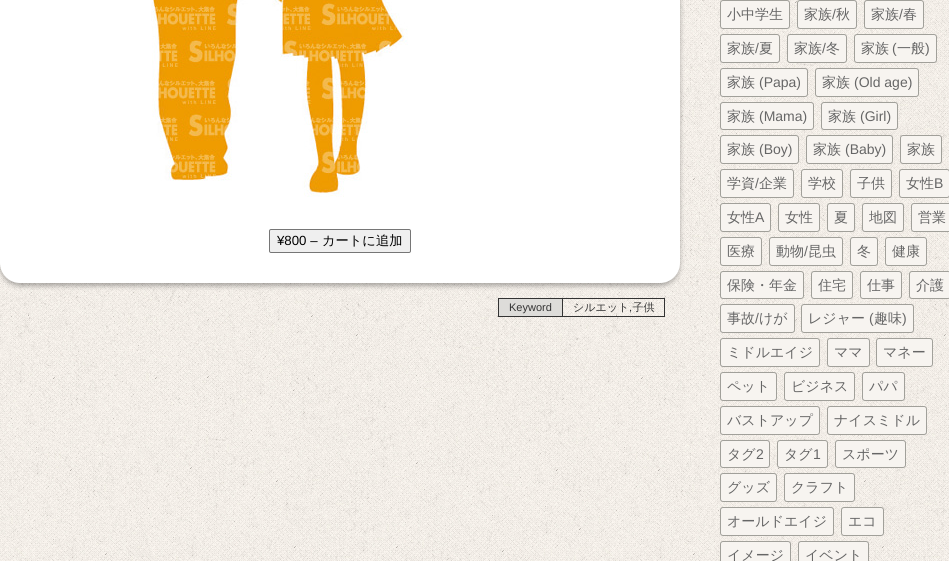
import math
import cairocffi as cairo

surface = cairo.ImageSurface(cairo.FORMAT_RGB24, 949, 561)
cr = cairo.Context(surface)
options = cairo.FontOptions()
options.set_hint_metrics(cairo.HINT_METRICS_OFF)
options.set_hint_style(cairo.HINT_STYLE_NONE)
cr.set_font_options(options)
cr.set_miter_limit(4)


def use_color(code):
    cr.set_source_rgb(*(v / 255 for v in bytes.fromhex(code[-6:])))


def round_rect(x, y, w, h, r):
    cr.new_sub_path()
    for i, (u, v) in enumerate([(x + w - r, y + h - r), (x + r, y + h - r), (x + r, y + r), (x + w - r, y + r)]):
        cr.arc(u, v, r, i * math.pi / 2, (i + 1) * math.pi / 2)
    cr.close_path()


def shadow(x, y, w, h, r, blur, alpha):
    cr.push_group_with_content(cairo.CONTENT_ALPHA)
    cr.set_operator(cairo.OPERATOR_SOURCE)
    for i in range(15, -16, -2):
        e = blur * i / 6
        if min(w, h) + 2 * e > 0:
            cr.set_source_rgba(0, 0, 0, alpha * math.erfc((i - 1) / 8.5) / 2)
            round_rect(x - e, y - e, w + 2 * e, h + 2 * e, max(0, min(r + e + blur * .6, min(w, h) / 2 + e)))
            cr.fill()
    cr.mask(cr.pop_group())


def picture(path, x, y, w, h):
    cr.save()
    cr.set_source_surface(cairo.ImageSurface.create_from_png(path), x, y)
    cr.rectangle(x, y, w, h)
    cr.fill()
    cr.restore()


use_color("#ffffff")
cr.paint()
picture("img1.png", 0, 0, 949, 561)
use_color("#000000")
shadow(0, -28, 680, 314, 20, 2.5, 0.3)
use_color("#ffffff")
round_rect(0, -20, 680, 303, 20)
cr.fill()
picture("img2.png", 151, 0, 257, 197)
use_color("#efefef")
round_rect(269.5, 229.5, 141, 23, 1.5)
cr.fill_preserve()
use_color("#767676")
cr.set_line_width(1)
cr.stroke()
cr.select_font_face("Liberation Sans")
cr.set_font_size(13.25)
use_color("#000000")
cr.move_to(277, 245)
cr.show_text("¥800 –")
cr.select_font_face("WenQuanYi Zen Hei Medium")
cr.move_to(322, 245)
cr.show_text("カートに追加")
use_color("#333333")
cr.rectangle(498, 298, 167, 1)
cr.fill()
cr.rectangle(664, 298, 1, 19)
cr.fill()
cr.rectangle(498, 316, 167, 1)
cr.fill()
cr.rectangle(498, 298, 1, 19)
cr.fill()
use_color("#dddcd9")
cr.rectangle(499, 299, 63, 17)
cr.fill()
use_color("#333333")
cr.rectangle(562, 298, 1, 19)
cr.fill()
cr.select_font_face("Liberation Sans")
cr.set_font_size(11)
cr.move_to(509, 311)
cr.show_text("Keyword")
cr.select_font_face("WenQuanYi Zen Hei Medium")
cr.move_to(573, 311)
cr.show_text("シルエット 子供")
cr.select_font_face("Liberation Sans")
cr.move_to(629, 311)
cr.show_text(",")
use_color("#f7f4f0")
round_rect(720.5, 0.5, 69, 28, 2.5)
cr.fill_preserve()
use_color("#a1a09a")
cr.stroke()
cr.select_font_face("WenQuanYi Zen Hei Medium")
cr.set_font_size(14)
use_color("#666666")
cr.move_to(727, 19)
cr.show_text("小中学生")
use_color("#f7f4f0")
round_rect(797.5, 0.5, 59, 28, 2.5)
cr.fill_preserve()
use_color("#a1a09a")
cr.stroke()
use_color("#666666")
cr.move_to(804, 19)
cr.show_text("家族")
cr.select_font_face("Liberation Sans")
cr.move_to(832, 19)
cr.show_text("/")
cr.select_font_face("WenQuanYi Zen Hei Medium")
cr.move_to(836, 19)
cr.show_text("秋")
use_color("#f7f4f0")
round_rect(864.5, 0.5, 59, 28, 2.5)
cr.fill_preserve()
use_color("#a1a09a")
cr.stroke()
use_color("#666666")
cr.move_to(871, 19)
cr.show_text("家族")
cr.select_font_face("Liberation Sans")
cr.move_to(899, 19)
cr.show_text("/")
cr.select_font_face("WenQuanYi Zen Hei Medium")
cr.move_to(903, 19)
cr.show_text("春")
use_color("#f7f4f0")
round_rect(720.5, 34.5, 59, 28, 2.5)
cr.fill_preserve()
use_color("#a1a09a")
cr.stroke()
use_color("#666666")
cr.move_to(727, 53)
cr.show_text("家族")
cr.select_font_face("Liberation Sans")
cr.move_to(755, 53)
cr.show_text("/")
cr.select_font_face("WenQuanYi Zen Hei Medium")
cr.move_to(759, 53)
cr.show_text("夏")
use_color("#f7f4f0")
round_rect(787.5, 34.5, 59, 28, 2.5)
cr.fill_preserve()
use_color("#a1a09a")
cr.stroke()
use_color("#666666")
cr.move_to(794, 53)
cr.show_text("家族")
cr.select_font_face("Liberation Sans")
cr.move_to(822, 53)
cr.show_text("/")
cr.select_font_face("WenQuanYi Zen Hei Medium")
cr.move_to(826, 53)
cr.show_text("冬")
use_color("#f7f4f0")
round_rect(854.5, 34.5, 82, 28, 2.5)
cr.fill_preserve()
use_color("#a1a09a")
cr.stroke()
use_color("#666666")
cr.move_to(861, 53)
cr.show_text("家族")
cr.select_font_face("Liberation Sans")
cr.move_to(892, 53)
cr.show_text("(")
cr.select_font_face("WenQuanYi Zen Hei Medium")
cr.move_to(897, 53)
cr.show_text("一般")
cr.select_font_face("Liberation Sans")
cr.move_to(925, 53)
cr.show_text(")")
use_color("#f7f4f0")
round_rect(720.5, 68.5, 87, 28, 2.5)
cr.fill_preserve()
use_color("#a1a09a")
cr.stroke()
cr.select_font_face("WenQuanYi Zen Hei Medium")
use_color("#666666")
cr.move_to(727, 87)
cr.show_text("家族")
cr.select_font_face("Liberation Sans")
cr.move_to(759, 87)
cr.show_text("(Papa)")
use_color("#f7f4f0")
round_rect(815.5, 68.5, 103, 28, 2.5)
cr.fill_preserve()
use_color("#a1a09a")
cr.stroke()
cr.select_font_face("WenQuanYi Zen Hei Medium")
use_color("#666666")
cr.move_to(822, 87)
cr.show_text("家族")
cr.select_font_face("Liberation Sans")
cr.move_to(854, 87)
cr.show_text("(Old age)")
use_color("#f7f4f0")
round_rect(720.5, 102.5, 93, 27, 2.5)
cr.fill_preserve()
use_color("#a1a09a")
cr.stroke()
cr.select_font_face("WenQuanYi Zen Hei Medium")
use_color("#666666")
cr.move_to(727, 121)
cr.show_text("家族")
cr.select_font_face("Liberation Sans")
cr.move_to(759, 121)
cr.show_text("(Mama)")
use_color("#f7f4f0")
round_rect(821.5, 102.5, 76, 27, 2.5)
cr.fill_preserve()
use_color("#a1a09a")
cr.stroke()
cr.select_font_face("WenQuanYi Zen Hei Medium")
use_color("#666666")
cr.move_to(828, 121)
cr.show_text("家族")
cr.select_font_face("Liberation Sans")
cr.move_to(860, 121)
cr.show_text("(Girl)")
use_color("#f7f4f0")
round_rect(720.5, 135.5, 78, 28, 2.5)
cr.fill_preserve()
use_color("#a1a09a")
cr.stroke()
cr.select_font_face("WenQuanYi Zen Hei Medium")
use_color("#666666")
cr.move_to(727, 154)
cr.show_text("家族")
cr.select_font_face("Liberation Sans")
cr.move_to(759, 154)
cr.show_text("(Boy)")
use_color("#f7f4f0")
round_rect(806.5, 135.5, 86, 28, 2.5)
cr.fill_preserve()
use_color("#a1a09a")
cr.stroke()
cr.select_font_face("WenQuanYi Zen Hei Medium")
use_color("#666666")
cr.move_to(813, 154)
cr.show_text("家族")
cr.select_font_face("Liberation Sans")
cr.move_to(845, 154)
cr.show_text("(Baby)")
use_color("#f7f4f0")
round_rect(900.5, 135.5, 41, 28, 2.5)
cr.fill_preserve()
use_color("#a1a09a")
cr.stroke()
cr.select_font_face("WenQuanYi Zen Hei Medium")
use_color("#666666")
cr.move_to(907, 154)
cr.show_text("家族")
use_color("#f7f4f0")
round_rect(720.5, 169.5, 73, 28, 2.5)
cr.fill_preserve()
use_color("#a1a09a")
cr.stroke()
use_color("#666666")
cr.move_to(727, 188)
cr.show_text("学資")
cr.select_font_face("Liberation Sans")
cr.move_to(755, 188)
cr.show_text("/")
cr.select_font_face("WenQuanYi Zen Hei Medium")
cr.move_to(759, 188)
cr.show_text("企業")
use_color("#f7f4f0")
round_rect(801.5, 169.5, 41, 28, 2.5)
cr.fill_preserve()
use_color("#a1a09a")
cr.stroke()
use_color("#666666")
cr.move_to(808, 188)
cr.show_text("学校")
use_color("#f7f4f0")
round_rect(850.5, 169.5, 41, 28, 2.5)
cr.fill_preserve()
use_color("#a1a09a")
cr.stroke()
use_color("#666666")
cr.move_to(857, 188)
cr.show_text("子供")
use_color("#f7f4f0")
round_rect(899.5, 169.5, 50, 28, 2.5)
cr.fill_preserve()
use_color("#a1a09a")
cr.stroke()
use_color("#666666")
cr.move_to(906, 188)
cr.show_text("女性")
cr.select_font_face("Liberation Sans")
cr.move_to(934, 188)
cr.show_text("B")
use_color("#f7f4f0")
round_rect(720.5, 203.5, 50, 28, 2.5)
cr.fill_preserve()
use_color("#a1a09a")
cr.stroke()
cr.select_font_face("WenQuanYi Zen Hei Medium")
use_color("#666666")
cr.move_to(727, 222)
cr.show_text("女性")
cr.select_font_face("Liberation Sans")
cr.move_to(755, 222)
cr.show_text("A")
use_color("#f7f4f0")
round_rect(778.5, 203.5, 41, 28, 2.5)
cr.fill_preserve()
use_color("#a1a09a")
cr.stroke()
cr.select_font_face("WenQuanYi Zen Hei Medium")
use_color("#666666")
cr.move_to(785, 222)
cr.show_text("女性")
use_color("#f7f4f0")
round_rect(827.5, 203.5, 27, 28, 2.5)
cr.fill_preserve()
use_color("#a1a09a")
cr.stroke()
use_color("#666666")
cr.move_to(834, 222)
cr.show_text("夏")
use_color("#f7f4f0")
round_rect(862.5, 203.5, 41, 28, 2.5)
cr.fill_preserve()
use_color("#a1a09a")
cr.stroke()
use_color("#666666")
cr.move_to(869, 222)
cr.show_text("地図")
use_color("#f7f4f0")
round_rect(911.5, 203.5, 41, 28, 2.5)
cr.fill_preserve()
use_color("#a1a09a")
cr.stroke()
use_color("#666666")
cr.move_to(918, 222)
cr.show_text("営業")
use_color("#f7f4f0")
round_rect(720.5, 237.5, 41, 28, 2.5)
cr.fill_preserve()
use_color("#a1a09a")
cr.stroke()
use_color("#666666")
cr.move_to(727, 256)
cr.show_text("医療")
use_color("#f7f4f0")
round_rect(769.5, 237.5, 73, 28, 2.5)
cr.fill_preserve()
use_color("#a1a09a")
cr.stroke()
use_color("#666666")
cr.move_to(776, 256)
cr.show_text("動物")
cr.select_font_face("Liberation Sans")
cr.move_to(804, 256)
cr.show_text("/")
cr.select_font_face("WenQuanYi Zen Hei Medium")
cr.move_to(808, 256)
cr.show_text("昆虫")
use_color("#f7f4f0")
round_rect(850.5, 237.5, 27, 28, 2.5)
cr.fill_preserve()
use_color("#a1a09a")
cr.stroke()
use_color("#666666")
cr.move_to(857, 256)
cr.show_text("冬")
use_color("#f7f4f0")
round_rect(885.5, 237.5, 41, 28, 2.5)
cr.fill_preserve()
use_color("#a1a09a")
cr.stroke()
use_color("#666666")
cr.move_to(892, 256)
cr.show_text("健康")
use_color("#f7f4f0")
round_rect(720.5, 271.5, 83, 27, 2.5)
cr.fill_preserve()
use_color("#a1a09a")
cr.stroke()
use_color("#666666")
cr.move_to(727, 290)
cr.show_text("保険・年金")
use_color("#f7f4f0")
round_rect(811.5, 271.5, 41, 27, 2.5)
cr.fill_preserve()
use_color("#a1a09a")
cr.stroke()
use_color("#666666")
cr.move_to(818, 290)
cr.show_text("住宅")
use_color("#f7f4f0")
round_rect(860.5, 271.5, 41, 27, 2.5)
cr.fill_preserve()
use_color("#a1a09a")
cr.stroke()
use_color("#666666")
cr.move_to(867, 290)
cr.show_text("仕事")
use_color("#f7f4f0")
round_rect(909.5, 271.5, 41, 27, 2.5)
cr.fill_preserve()
use_color("#a1a09a")
cr.stroke()
use_color("#666666")
cr.move_to(916, 290)
cr.show_text("介護")
use_color("#f7f4f0")
round_rect(720.5, 304.5, 74, 28, 2.5)
cr.fill_preserve()
use_color("#a1a09a")
cr.stroke()
use_color("#666666")
cr.move_to(727, 323)
cr.show_text("事故")
cr.select_font_face("Liberation Sans")
cr.move_to(755, 323)
cr.show_text("/")
cr.select_font_face("WenQuanYi Zen Hei Medium")
cr.move_to(759, 323)
cr.show_text("けが")
use_color("#f7f4f0")
round_rect(801.5, 304.5, 112, 28, 2.5)
cr.fill_preserve()
use_color("#a1a09a")
cr.stroke()
use_color("#666666")
cr.move_to(808, 323)
cr.show_text("レジャー")
cr.select_font_face("Liberation Sans")
cr.move_to(869, 323)
cr.show_text("(")
cr.select_font_face("WenQuanYi Zen Hei Medium")
cr.move_to(874, 323)
cr.show_text("趣味")
cr.select_font_face("Liberation Sans")
cr.move_to(902, 323)
cr.show_text(")")
use_color("#f7f4f0")
round_rect(720.5, 338.5, 99, 28, 2.5)
cr.fill_preserve()
use_color("#a1a09a")
cr.stroke()
cr.select_font_face("WenQuanYi Zen Hei Medium")
use_color("#666666")
cr.move_to(727, 357)
cr.show_text("ミドルエイジ")
use_color("#f7f4f0")
round_rect(827.5, 338.5, 42, 28, 2.5)
cr.fill_preserve()
use_color("#a1a09a")
cr.stroke()
use_color("#666666")
cr.move_to(834, 357)
cr.show_text("ママ")
use_color("#f7f4f0")
round_rect(876.5, 338.5, 56, 28, 2.5)
cr.fill_preserve()
use_color("#a1a09a")
cr.stroke()
use_color("#666666")
cr.move_to(883, 357)
cr.show_text("マネー")
use_color("#f7f4f0")
round_rect(720.5, 372.5, 56, 28, 2.5)
cr.fill_preserve()
use_color("#a1a09a")
cr.stroke()
use_color("#666666")
cr.move_to(727, 391)
cr.show_text("ペット")
use_color("#f7f4f0")
round_rect(784.5, 372.5, 70, 28, 2.5)
cr.fill_preserve()
use_color("#a1a09a")
cr.stroke()
use_color("#666666")
cr.move_to(791, 391)
cr.show_text("ビジネス")
use_color("#f7f4f0")
round_rect(862.5, 372.5, 42, 28, 2.5)
cr.fill_preserve()
use_color("#a1a09a")
cr.stroke()
use_color("#666666")
cr.move_to(869, 391)
cr.show_text("パパ")
use_color("#f7f4f0")
round_rect(720.5, 406.5, 99, 28, 2.5)
cr.fill_preserve()
use_color("#a1a09a")
cr.stroke()
use_color("#666666")
cr.move_to(727, 425)
cr.show_text("バストアップ")
use_color("#f7f4f0")
round_rect(827.5, 406.5, 99, 28, 2.5)
cr.fill_preserve()
use_color("#a1a09a")
cr.stroke()
use_color("#666666")
cr.move_to(834, 425)
cr.show_text("ナイスミドル")
use_color("#f7f4f0")
round_rect(720.5, 440.5, 49, 27, 2.5)
cr.fill_preserve()
use_color("#a1a09a")
cr.stroke()
use_color("#666666")
cr.move_to(727, 459)
cr.show_text("タグ")
cr.select_font_face("Liberation Sans")
cr.move_to(756, 459)
cr.show_text("2")
use_color("#f7f4f0")
round_rect(777.5, 440.5, 50, 27, 2.5)
cr.fill_preserve()
use_color("#a1a09a")
cr.stroke()
cr.select_font_face("WenQuanYi Zen Hei Medium")
use_color("#666666")
cr.move_to(784, 459)
cr.show_text("タグ")
cr.select_font_face("Liberation Sans")
cr.move_to(813, 459)
cr.show_text("1")
use_color("#f7f4f0")
round_rect(835.5, 440.5, 70, 27, 2.5)
cr.fill_preserve()
use_color("#a1a09a")
cr.stroke()
cr.select_font_face("WenQuanYi Zen Hei Medium")
use_color("#666666")
cr.move_to(842, 459)
cr.show_text("スポーツ")
use_color("#f7f4f0")
round_rect(720.5, 473.5, 56, 28, 2.5)
cr.fill_preserve()
use_color("#a1a09a")
cr.stroke()
use_color("#666666")
cr.move_to(727, 492)
cr.show_text("グッズ")
use_color("#f7f4f0")
round_rect(784.5, 473.5, 70, 28, 2.5)
cr.fill_preserve()
use_color("#a1a09a")
cr.stroke()
use_color("#666666")
cr.move_to(791, 492)
cr.show_text("クラフト")
use_color("#f7f4f0")
round_rect(720.5, 507.5, 113, 28, 2.5)
cr.fill_preserve()
use_color("#a1a09a")
cr.stroke()
use_color("#666666")
cr.move_to(727, 526)
cr.show_text("オールドエイジ")
use_color("#f7f4f0")
round_rect(841.5, 507.5, 42, 28, 2.5)
cr.fill_preserve()
use_color("#a1a09a")
cr.stroke()
use_color("#666666")
cr.move_to(848, 526)
cr.show_text("エコ")
use_color("#f7f4f0")
round_rect(720.5, 541.5, 70, 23, 2.5)
cr.fill_preserve()
use_color("#a1a09a")
cr.stroke()
use_color("#666666")
cr.move_to(727, 560)
cr.show_text("イメージ")
use_color("#f7f4f0")
round_rect(798.5, 541.5, 70, 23, 2.5)
cr.fill_preserve()
use_color("#a1a09a")
cr.stroke()
use_color("#666666")
cr.move_to(805, 560)
cr.show_text("イベント")
surface.write_to_png("result.png")
